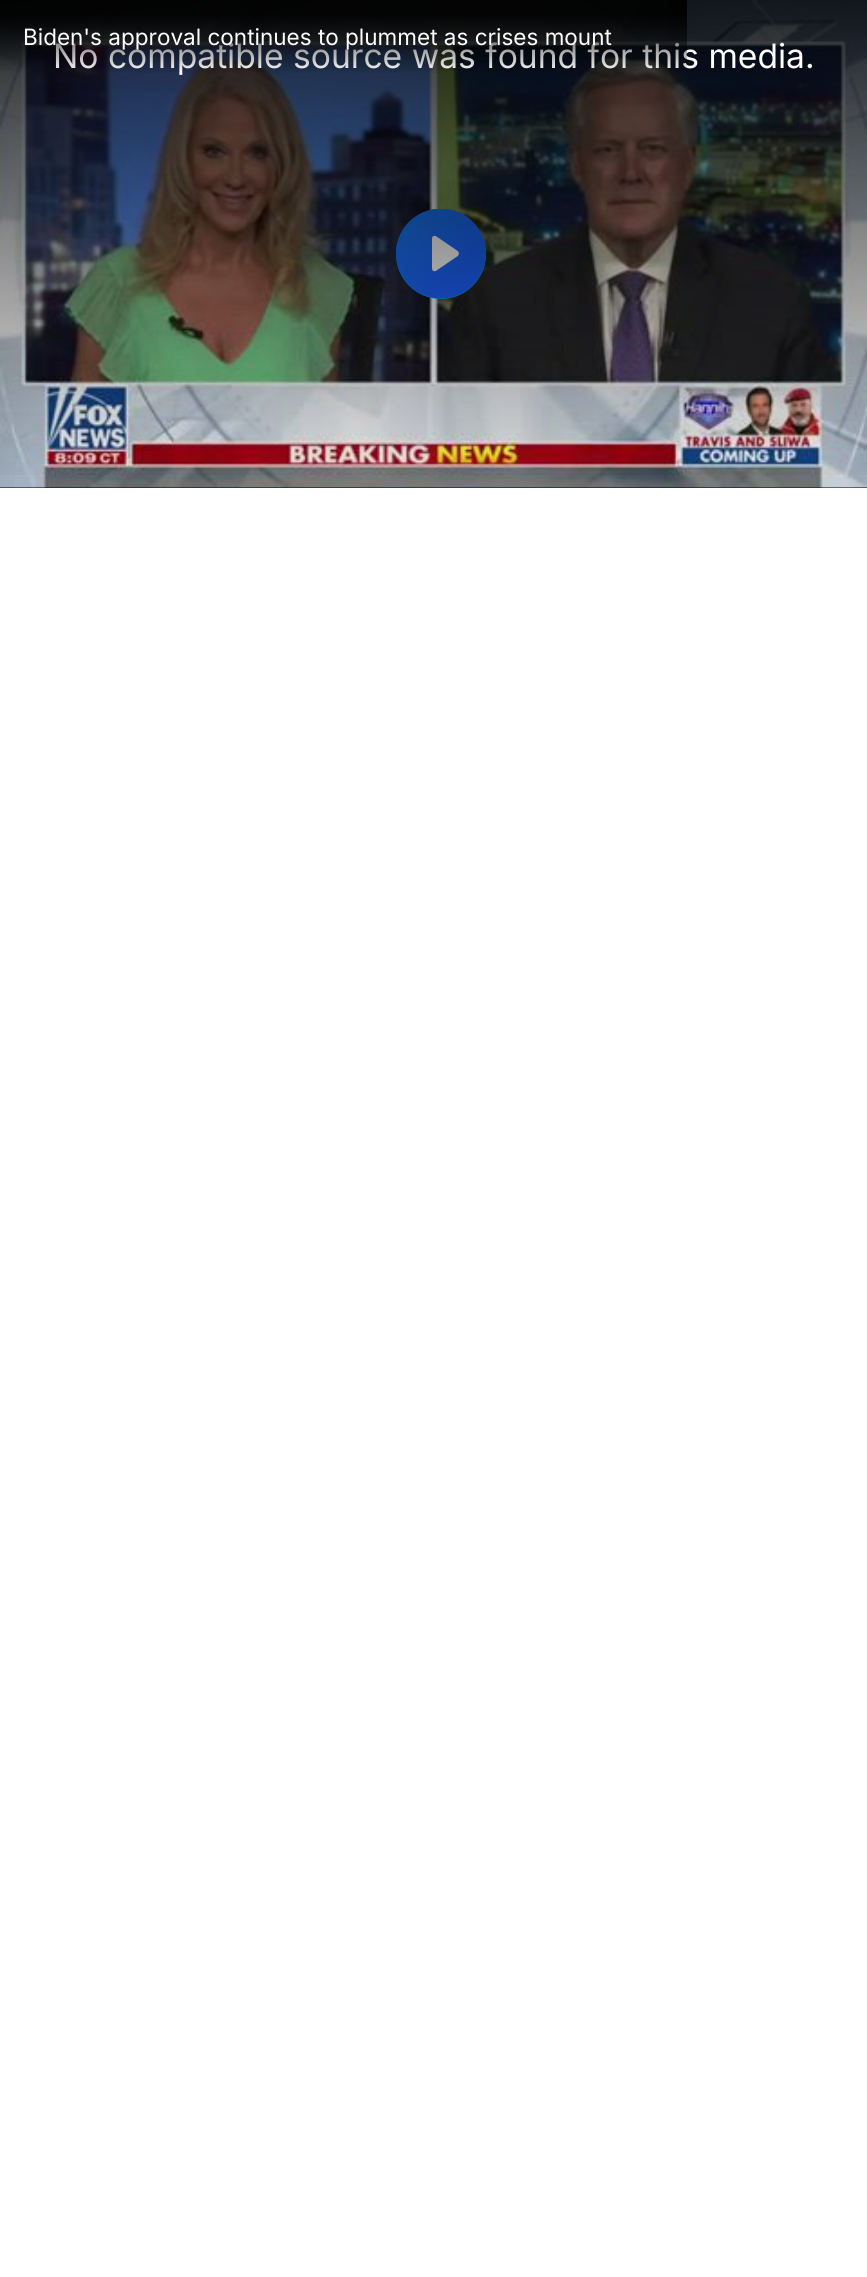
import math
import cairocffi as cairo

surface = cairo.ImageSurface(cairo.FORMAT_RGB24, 867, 2277)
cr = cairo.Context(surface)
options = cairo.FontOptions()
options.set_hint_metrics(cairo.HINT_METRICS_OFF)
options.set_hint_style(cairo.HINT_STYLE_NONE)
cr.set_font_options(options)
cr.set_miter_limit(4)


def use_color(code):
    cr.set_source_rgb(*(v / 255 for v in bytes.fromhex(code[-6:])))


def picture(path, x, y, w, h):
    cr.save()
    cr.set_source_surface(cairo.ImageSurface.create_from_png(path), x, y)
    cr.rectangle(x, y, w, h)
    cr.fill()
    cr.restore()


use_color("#ffffff")
cr.paint()
use_color("#000000")
cr.rectangle(0, 487, 867, 1)
cr.fill()
picture("img1.png", 0, 0, 867, 488)
use_color("#01aef0")
cr.arc(441, 254, 45, 0, 2 * math.pi)
cr.fill()
cr.save()
cr.rectangle(396, 209, 90, 90)
cr.clip()
gradient = cairo.LinearGradient(403, 208, 457, 273)
gradient.add_color_stop_rgba(0, 0.102, 0.494, 0.98, 1)
gradient.add_color_stop_rgba(1, 0.11, 0.38, 0.976, 1)
cr.set_source(gradient)
cr.arc(441, 253.5, 45, 0, 2 * math.pi)
cr.fill()
cr.restore()
use_color("#ffffff")
cr.new_path()
cr.move_to(436.5, 270.5)
cr.curve_to(434, 272, 432, 271, 432, 268)
cr.line_to(432, 239)
cr.curve_to(432, 236, 434, 235, 436.5, 236.5)
cr.line_to(457, 250.5)
cr.curve_to(459.5, 252, 459.5, 255, 457, 256.5)
cr.close_path()
cr.fill()
gradient = cairo.LinearGradient(434, 0, 434, 488)
gradient.add_color_stop_rgba(0, 0, 0, 0, 0.8)
gradient.add_color_stop_rgba(1, 0, 0, 0, 0)
cr.set_source(gradient)
cr.rectangle(0, 0, 867, 475)
cr.fill()
cr.select_font_face("Inter")
cr.set_font_size(33.6)
use_color("#ffffff")
cr.move_to(53, 68)
cr.show_text("No compatible source was found for this media.")
gradient = cairo.LinearGradient(344, 0, 344, 74)
gradient.add_color_stop_rgba(0.2, 0, 0, 0, 0.9)
gradient.add_color_stop_rgba(1, 0, 0, 0, 0)
cr.set_source(gradient)
cr.rectangle(0, 0, 687, 73)
cr.fill()
cr.set_font_size(22.5)
use_color("#ffffff")
cr.move_to(23, 45)
cr.show_text("Biden's approval continues to plummet as crises mount")
surface.write_to_png("result.png")
